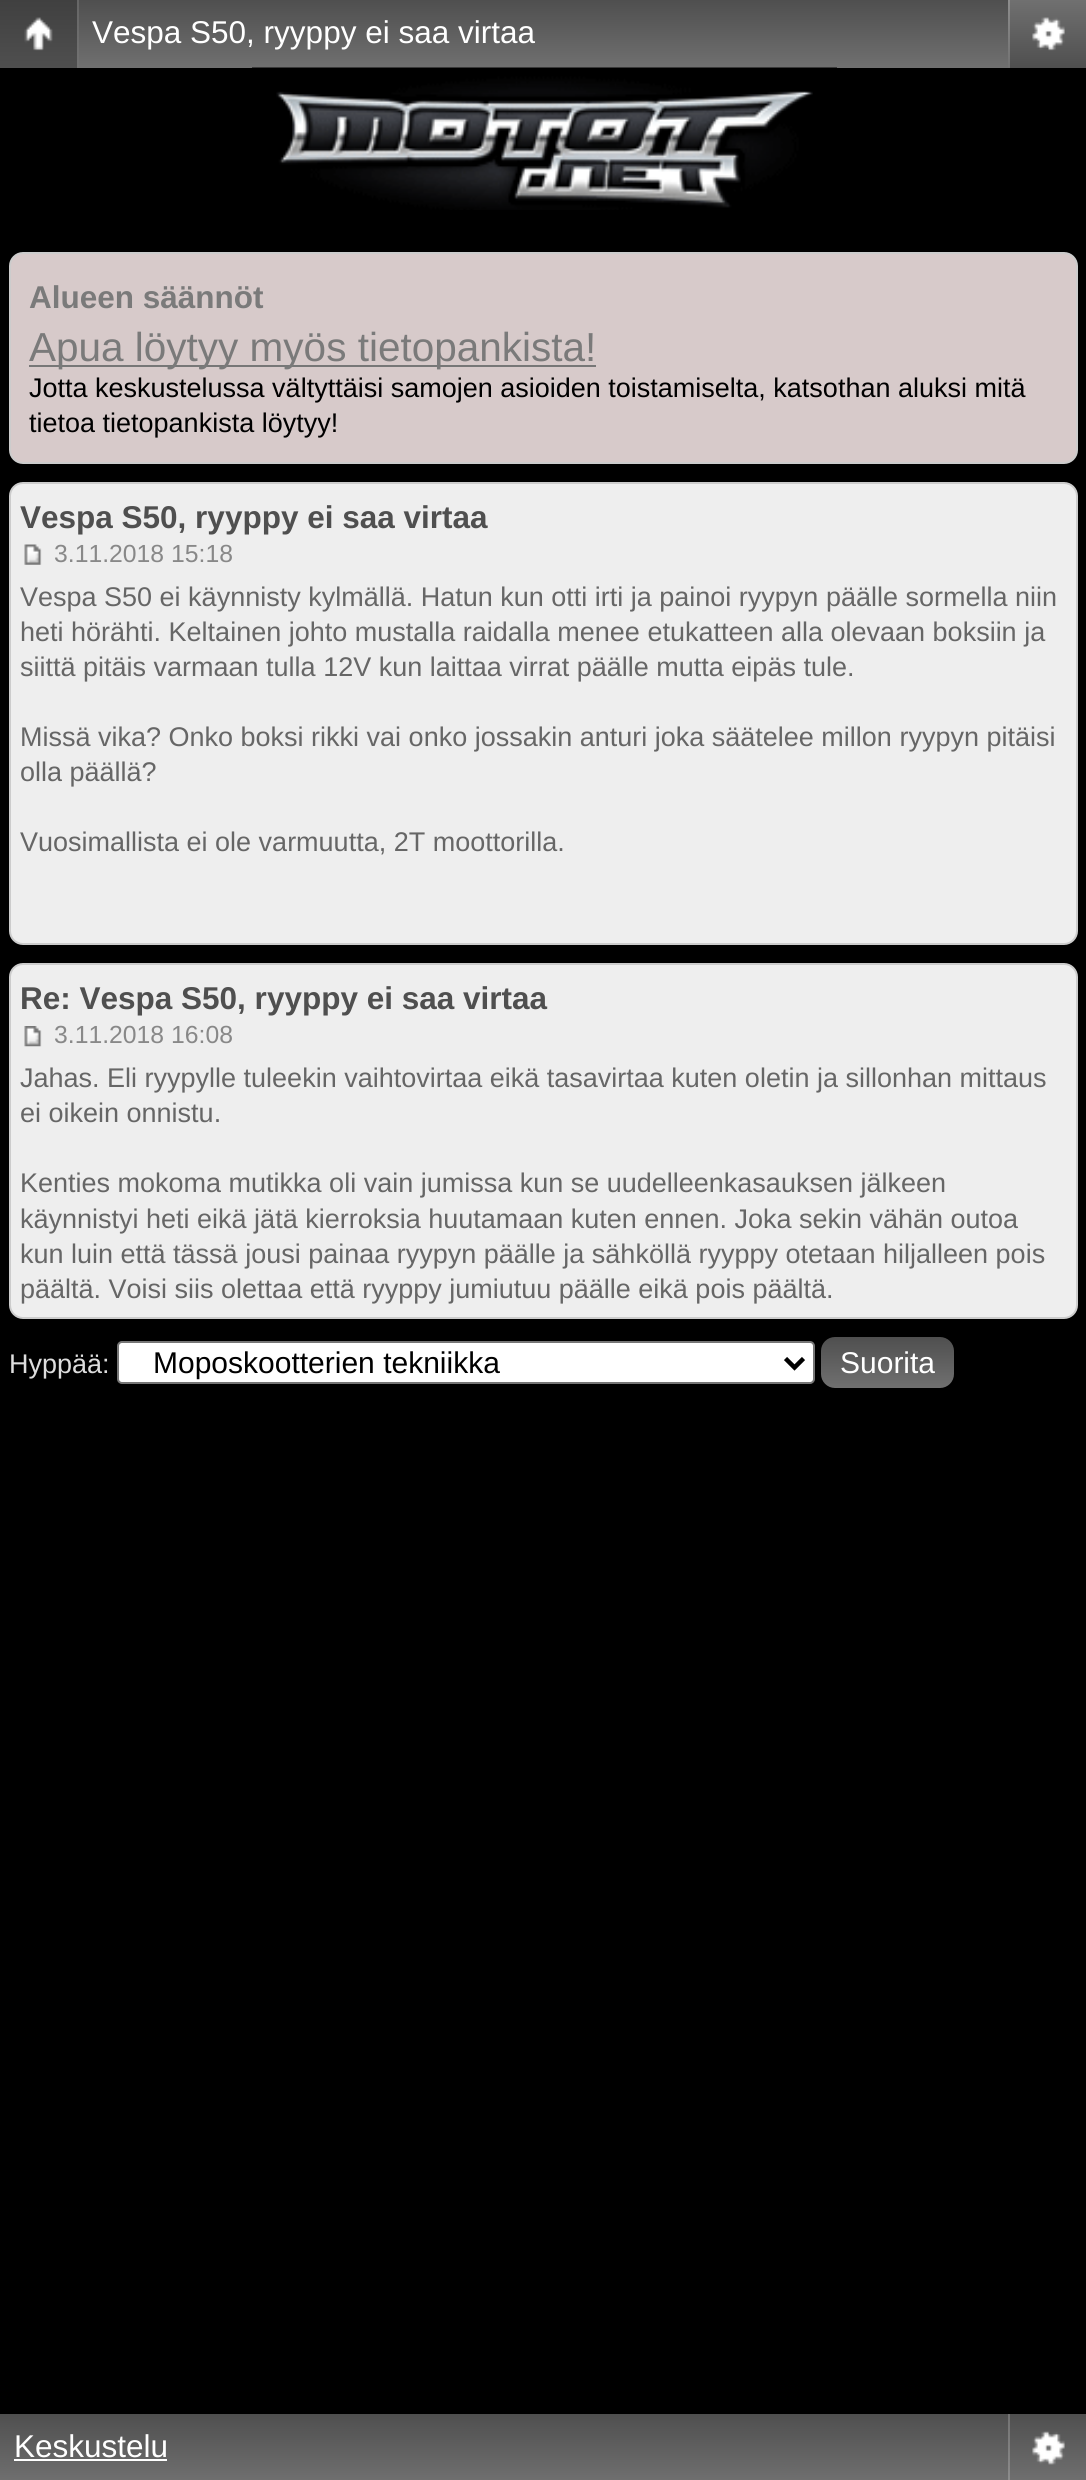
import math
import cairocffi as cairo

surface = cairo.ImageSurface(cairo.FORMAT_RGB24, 1086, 2480)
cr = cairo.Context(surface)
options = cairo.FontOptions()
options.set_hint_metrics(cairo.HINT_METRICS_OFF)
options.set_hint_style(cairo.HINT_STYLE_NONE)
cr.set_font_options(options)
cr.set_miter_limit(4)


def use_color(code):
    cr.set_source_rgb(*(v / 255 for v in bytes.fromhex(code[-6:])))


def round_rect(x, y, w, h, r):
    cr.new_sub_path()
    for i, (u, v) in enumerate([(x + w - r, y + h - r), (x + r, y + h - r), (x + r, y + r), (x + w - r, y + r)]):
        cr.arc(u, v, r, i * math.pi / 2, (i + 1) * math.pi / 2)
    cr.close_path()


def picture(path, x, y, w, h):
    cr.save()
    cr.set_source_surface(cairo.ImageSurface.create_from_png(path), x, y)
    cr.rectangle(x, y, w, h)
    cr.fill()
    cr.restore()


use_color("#000000")
cr.paint()
gradient = cairo.LinearGradient(0, 0, 0, 68)
gradient.add_color_stop_rgba(0, 0.31, 0.31, 0.31, 1)
gradient.add_color_stop_rgba(1, 0.439, 0.439, 0.439, 1)
cr.set_source(gradient)
cr.rectangle(79, 0, 929, 68)
cr.fill()
gradient = cairo.LinearGradient(0, 0, 0, 68)
gradient.add_color_stop_rgba(0, 0.251, 0.251, 0.251, 1)
gradient.add_color_stop_rgba(1, 0.31, 0.31, 0.31, 1)
cr.set_source(gradient)
cr.rectangle(0, 0, 77, 68)
cr.fill()
gradient = cairo.LinearGradient(0, 0, 0, 68)
gradient.add_color_stop_rgba(0, 0.4, 0.4, 0.4, 1)
gradient.add_color_stop_rgba(1, 0.447, 0.447, 0.447, 1)
cr.set_source(gradient)
cr.rectangle(77, 0, 2, 68)
cr.fill()
picture("img1.png", 24, 17, 29, 34)
cr.select_font_face("Liberation Sans")
cr.set_font_size(31.5)
use_color("#ffffff")
cr.move_to(92, 43)
cr.show_text("Vespa S50, ryyppy ei saa virtaa")
gradient = cairo.LinearGradient(1008, 0, 1008, 68)
gradient.add_color_stop_rgba(0, 0.439, 0.439, 0.439, 1)
gradient.add_color_stop_rgba(1, 0.31, 0.31, 0.31, 1)
cr.set_source(gradient)
cr.rectangle(1010, 0, 76, 68)
cr.fill()
gradient = cairo.LinearGradient(1008, 0, 1008, 68)
gradient.add_color_stop_rgba(0, 0.553, 0.553, 0.553, 1)
gradient.add_color_stop_rgba(1, 0.447, 0.447, 0.447, 1)
cr.set_source(gradient)
cr.rectangle(1008, 0, 2, 68)
cr.fill()
picture("img2.png", 1032, 17, 33, 34)
picture("img3.png", 252, 67, 585, 143)
use_color("#d7caca")
round_rect(10, 253, 1067, 210, 13)
cr.fill_preserve()
use_color("#cccccc")
cr.stroke()
cr.select_font_face("Liberation Sans", cairo.FONT_SLANT_NORMAL, cairo.FONT_WEIGHT_BOLD)
use_color("#7a7a7a")
cr.move_to(29, 308)
cr.show_text("Alueen säännöt")
use_color("#777777")
cr.rectangle(29, 365, 567, 2)
cr.fill()
cr.select_font_face("Liberation Sans")
cr.set_font_size(40.5)
use_color("#7a7a7a")
cr.move_to(29, 361)
cr.show_text("Apua löytyy myös tietopankista!")
cr.set_font_size(27)
use_color("#000000")
cr.move_to(29, 397)
cr.show_text("Jotta keskustelussa vältyttäisi samojen asioiden toistamiselta, katsothan aluksi mitä")
cr.move_to(29, 432)
cr.show_text("tietoa tietopankista löytyy!")
use_color("#eeeeee")
round_rect(10, 483, 1067, 461, 13)
cr.fill_preserve()
use_color("#cccccc")
cr.stroke()
cr.select_font_face("Liberation Sans", cairo.FONT_SLANT_NORMAL, cairo.FONT_WEIGHT_BOLD)
cr.set_font_size(31.5)
use_color("#4f4f4f")
cr.move_to(20, 528)
cr.show_text("Vespa S50, ryyppy ei saa virtaa")
picture("img4.png", 24, 544, 18, 21)
cr.select_font_face("Liberation Sans")
cr.set_font_size(24.75)
use_color("#888888")
cr.move_to(54, 562)
cr.show_text("3.11.2018 15:18")
cr.set_font_size(27)
use_color("#666666")
cr.move_to(20, 606)
cr.show_text("Vespa S50 ei käynnisty kylmällä. Hatun kun otti irti ja painoi ryypyn päälle sormella niin")
cr.move_to(20, 641)
cr.show_text("heti hörähti. Keltainen johto mustalla raidalla menee etukatteen alla olevaan boksiin ja")
cr.move_to(20, 676)
cr.show_text("siittä pitäis varmaan tulla 12V kun laittaa virrat päälle mutta eipäs tule.")
cr.move_to(20, 746)
cr.show_text("Missä vika? Onko boksi rikki vai onko jossakin anturi joka säätelee millon ryypyn pitäisi")
cr.move_to(20, 781)
cr.show_text("olla päällä?")
cr.move_to(20, 851)
cr.show_text("Vuosimallista ei ole varmuutta, 2T moottorilla.")
use_color("#eeeeee")
round_rect(10, 964, 1067, 354, 13)
cr.fill_preserve()
use_color("#cccccc")
cr.stroke()
cr.select_font_face("Liberation Sans", cairo.FONT_SLANT_NORMAL, cairo.FONT_WEIGHT_BOLD)
cr.set_font_size(31.5)
use_color("#4f4f4f")
cr.move_to(20, 1009)
cr.show_text("Re: Vespa S50, ryyppy ei saa virtaa")
picture("img5.png", 24, 1026, 18, 21)
cr.select_font_face("Liberation Sans")
cr.set_font_size(24.75)
use_color("#888888")
cr.move_to(54, 1043)
cr.show_text("3.11.2018 16:08")
cr.set_font_size(27)
use_color("#666666")
cr.move_to(20, 1087)
cr.show_text("Jahas. Eli ryypylle tuleekin vaihtovirtaa eikä tasavirtaa kuten oletin ja sillonhan mittaus")
cr.move_to(20, 1122)
cr.show_text("ei oikein onnistu.")
cr.move_to(20, 1192)
cr.show_text("Kenties mokoma mutikka oli vain jumissa kun se uudelleenkasauksen jälkeen")
cr.move_to(20, 1228)
cr.show_text("käynnistyi heti eikä jätä kierroksia huutamaan kuten ennen. Joka sekin vähän outoa")
cr.move_to(20, 1263)
cr.show_text("kun luin että tässä jousi painaa ryypyn päälle ja sähköllä ryyppy otetaan hiljalleen pois")
cr.move_to(20, 1298)
cr.show_text("päältä. Voisi siis olettaa että ryyppy jumiutuu päälle eikä pois päältä.")
use_color("#dddddd")
cr.move_to(9, 1373)
cr.show_text("Hyppää:")
use_color("#ffffff")
round_rect(118, 1342, 696, 41, 4)
cr.fill_preserve()
use_color("#767676")
cr.stroke()
cr.new_path()
cr.move_to(785.5, 1358.5)
cr.line_to(794.5, 1367.5)
cr.line_to(803.5, 1358.5)
use_color("#000000")
cr.set_line_width(4.5)
cr.stroke()
cr.set_font_size(30)
cr.move_to(153, 1373)
cr.show_text("Moposkootterien tekniikka")
gradient = cairo.LinearGradient(821, 1337, 821, 1388)
gradient.add_color_stop_rgba(0, 0.31, 0.31, 0.31, 1)
gradient.add_color_stop_rgba(1, 0.439, 0.439, 0.439, 1)
cr.set_source(gradient)
round_rect(821, 1337, 133, 51, 14)
cr.fill()
use_color("#ffffff")
cr.move_to(840, 1373)
cr.show_text("Suorita")
gradient = cairo.LinearGradient(0, 2414, 0, 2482)
gradient.add_color_stop_rgba(0, 0.31, 0.31, 0.31, 1)
gradient.add_color_stop_rgba(1, 0.439, 0.439, 0.439, 1)
cr.set_source(gradient)
cr.rectangle(0, 2414, 1086, 66)
cr.fill()
gradient = cairo.LinearGradient(0, 2414, 0, 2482)
gradient.add_color_stop_rgba(0, 0.447, 0.447, 0.447, 1)
gradient.add_color_stop_rgba(1, 0.553, 0.553, 0.553, 1)
cr.set_source(gradient)
cr.rectangle(1008, 2414, 2, 66)
cr.fill()
cr.set_font_size(31.5)
use_color("#ffffff")
cr.move_to(14, 2457)
cr.show_text("Keskustelu")
cr.rectangle(14, 2459, 153, 2)
cr.fill()
picture("img6.png", 1032, 2431, 33, 34)
surface.write_to_png("result.png")
